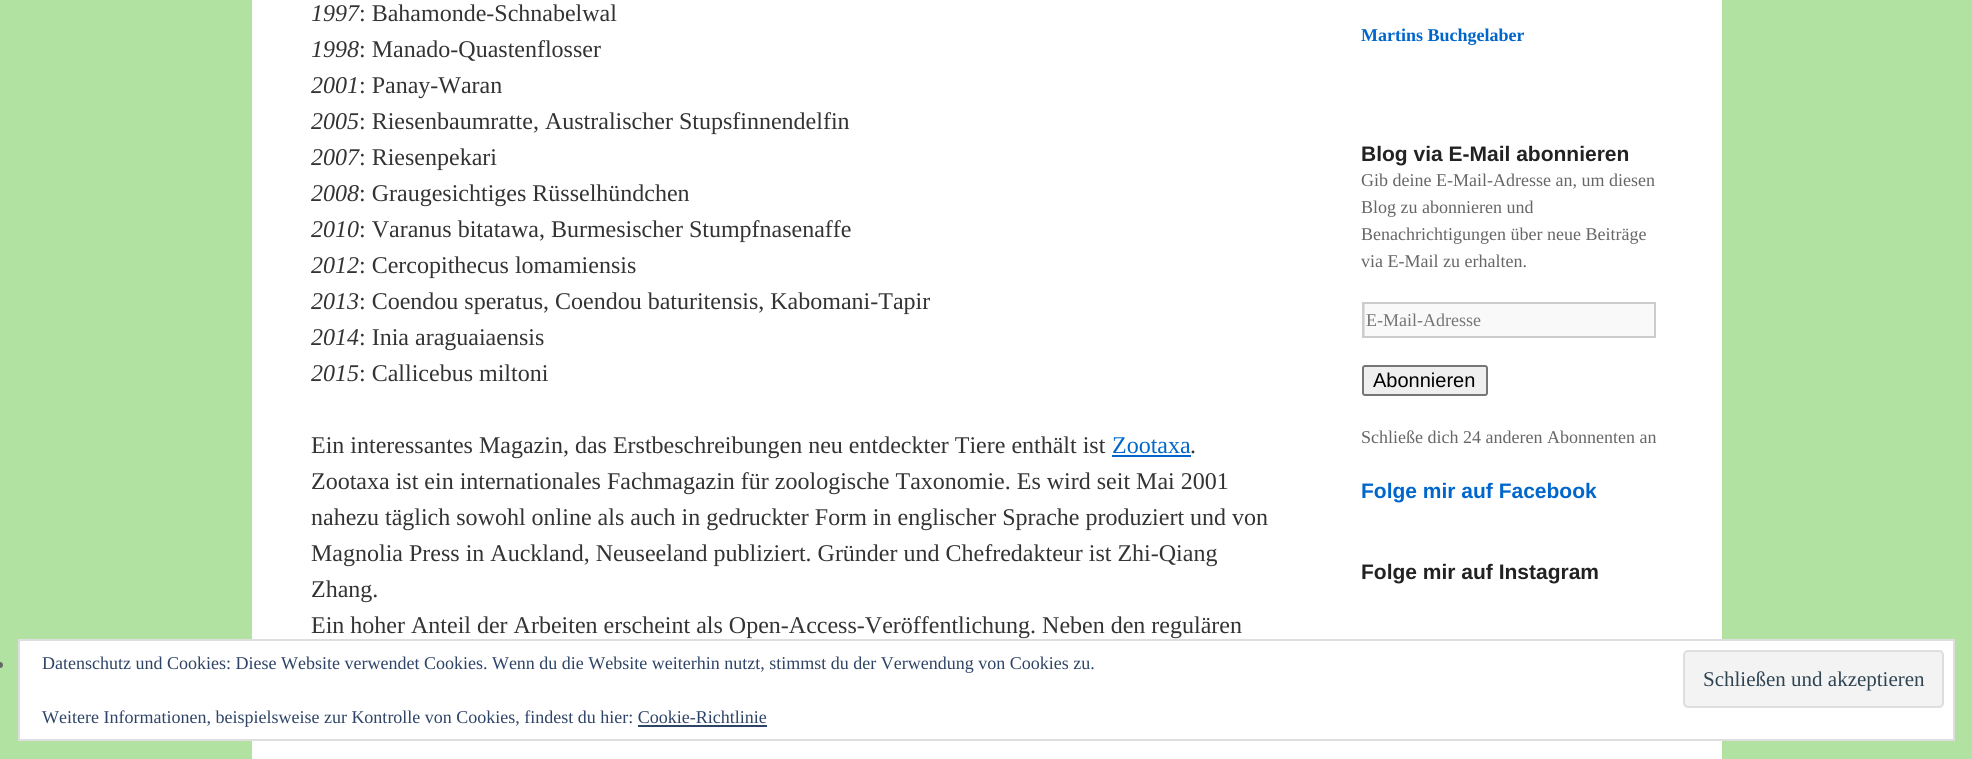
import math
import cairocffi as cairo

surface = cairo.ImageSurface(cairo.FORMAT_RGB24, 1972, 759)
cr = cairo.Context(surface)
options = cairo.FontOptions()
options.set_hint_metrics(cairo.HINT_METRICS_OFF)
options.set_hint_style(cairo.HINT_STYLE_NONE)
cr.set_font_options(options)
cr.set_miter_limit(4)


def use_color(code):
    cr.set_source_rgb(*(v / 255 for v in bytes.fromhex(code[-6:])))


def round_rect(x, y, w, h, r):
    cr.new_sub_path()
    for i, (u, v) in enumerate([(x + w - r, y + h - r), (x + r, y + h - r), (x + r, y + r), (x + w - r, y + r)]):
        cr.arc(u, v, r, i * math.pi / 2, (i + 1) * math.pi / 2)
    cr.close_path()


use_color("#b1e2a1")
cr.paint()
use_color("#ffffff")
cr.rectangle(252, 0, 1470, 759)
cr.fill()
cr.select_font_face("Liberation Serif", cairo.FONT_SLANT_ITALIC)
cr.set_font_size(24)
use_color("#333333")
cr.move_to(311, 21)
cr.show_text("1997")
cr.select_font_face("Liberation Serif")
cr.move_to(359, 21)
cr.show_text(": Bahamonde-Schnabelwal")
cr.select_font_face("Liberation Serif", cairo.FONT_SLANT_ITALIC)
cr.move_to(311, 57)
cr.show_text("1998")
cr.select_font_face("Liberation Serif")
cr.move_to(359, 57)
cr.show_text(": Manado-Quastenflosser")
cr.select_font_face("Liberation Serif", cairo.FONT_SLANT_ITALIC)
cr.move_to(311, 93)
cr.show_text("2001")
cr.select_font_face("Liberation Serif")
cr.move_to(359, 93)
cr.show_text(": Panay-Waran")
cr.select_font_face("Liberation Serif", cairo.FONT_SLANT_ITALIC)
cr.move_to(311, 129)
cr.show_text("2005")
cr.select_font_face("Liberation Serif")
cr.move_to(359, 129)
cr.show_text(": Riesenbaumratte, Australischer Stupsfinnendelfin")
cr.select_font_face("Liberation Serif", cairo.FONT_SLANT_ITALIC)
cr.move_to(311, 165)
cr.show_text("2007")
cr.select_font_face("Liberation Serif")
cr.move_to(359, 165)
cr.show_text(": Riesenpekari")
cr.select_font_face("Liberation Serif", cairo.FONT_SLANT_ITALIC)
cr.move_to(311, 201)
cr.show_text("2008")
cr.select_font_face("Liberation Serif")
cr.move_to(359, 201)
cr.show_text(": Graugesichtiges Rüsselhündchen")
cr.select_font_face("Liberation Serif", cairo.FONT_SLANT_ITALIC)
cr.move_to(311, 237)
cr.show_text("2010")
cr.select_font_face("Liberation Serif")
cr.move_to(359, 237)
cr.show_text(": Varanus bitatawa, Burmesischer Stumpfnasenaffe")
cr.select_font_face("Liberation Serif", cairo.FONT_SLANT_ITALIC)
cr.move_to(311, 273)
cr.show_text("2012")
cr.select_font_face("Liberation Serif")
cr.move_to(359, 273)
cr.show_text(": Cercopithecus lomamiensis")
cr.select_font_face("Liberation Serif", cairo.FONT_SLANT_ITALIC)
cr.move_to(311, 309)
cr.show_text("2013")
cr.select_font_face("Liberation Serif")
cr.move_to(359, 309)
cr.show_text(": Coendou speratus, Coendou baturitensis, Kabomani-Tapir")
cr.select_font_face("Liberation Serif", cairo.FONT_SLANT_ITALIC)
cr.move_to(311, 345)
cr.show_text("2014")
cr.select_font_face("Liberation Serif")
cr.move_to(359, 345)
cr.show_text(": Inia araguaiaensis")
cr.select_font_face("Liberation Serif", cairo.FONT_SLANT_ITALIC)
cr.move_to(311, 381)
cr.show_text("2015")
cr.select_font_face("Liberation Serif")
cr.move_to(359, 381)
cr.show_text(": Callicebus miltoni")
cr.move_to(311, 453)
cr.show_text("Ein interessantes Magazin, das Erstbeschreibungen neu entdeckter Tiere enthält ist")
use_color("#0066cc")
cr.move_to(1112, 453)
cr.show_text("Zootaxa")
cr.rectangle(1112, 455, 79, 2)
cr.fill()
use_color("#333333")
cr.move_to(1190, 453)
cr.show_text(".")
cr.move_to(311, 489)
cr.show_text("Zootaxa ist ein internationales Fachmagazin für zoologische Taxonomie. Es wird seit Mai 2001")
cr.move_to(311, 525)
cr.show_text("nahezu täglich sowohl online als auch in gedruckter Form in englischer Sprache produziert und von")
cr.move_to(311, 561)
cr.show_text("Magnolia Press in Auckland, Neuseeland publiziert. Gründer und Chefredakteur ist Zhi-Qiang")
cr.move_to(311, 597)
cr.show_text("Zhang.")
cr.move_to(311, 633)
cr.show_text("Ein hoher Anteil der Arbeiten erscheint als Open-Access-Veröffentlichung. Neben den regulären")
cr.select_font_face("Liberation Serif", cairo.FONT_SLANT_NORMAL, cairo.FONT_WEIGHT_BOLD)
cr.set_font_size(18)
use_color("#0066cc")
cr.move_to(1361, 41)
cr.show_text("Martins Buchgelaber")
cr.select_font_face("Liberation Sans", cairo.FONT_SLANT_NORMAL, cairo.FONT_WEIGHT_BOLD)
cr.set_font_size(21)
use_color("#222222")
cr.move_to(1361, 161)
cr.show_text("Blog via E-Mail abonnieren")
cr.select_font_face("Liberation Serif")
cr.set_font_size(18)
use_color("#666666")
cr.move_to(1361, 186)
cr.show_text("Gib deine E-Mail-Adresse an, um diesen")
cr.move_to(1361, 213)
cr.show_text("Blog zu abonnieren und")
cr.move_to(1361, 240)
cr.show_text("Benachrichtigungen über neue Beiträge")
cr.move_to(1361, 267)
cr.show_text("via E-Mail zu erhalten.")
use_color("#f9f9f9")
cr.rectangle(1365, 304, 289, 32)
cr.fill()
cr.save()
cr.rectangle(1364, 303, 291, 33)
cr.clip()
use_color("#e0e0e0")
cr.set_fill_rule(cairo.FILL_RULE_EVEN_ODD)
cr.new_path()
cr.move_to(1215, 154)
cr.line_to(1803, 154)
cr.line_to(1803, 484)
cr.line_to(1215, 484)
cr.close_path()
cr.move_to(1365, 304)
cr.line_to(1656, 304)
cr.line_to(1656, 338)
cr.line_to(1365, 338)
cr.close_path()
cr.fill()
cr.restore()
cr.rectangle(1363, 303, 292, 34)
use_color("#cccccc")
cr.stroke()
use_color("#757575")
cr.move_to(1366, 326)
cr.show_text("E-Mail-Adresse")
use_color("#efefef")
round_rect(1363, 366, 124, 29, 2)
cr.fill_preserve()
use_color("#767676")
cr.stroke()
cr.select_font_face("Liberation Sans")
cr.set_font_size(20)
use_color("#000000")
cr.move_to(1373, 387)
cr.show_text("Abonnieren")
cr.select_font_face("Liberation Serif")
cr.set_font_size(18)
use_color("#666666")
cr.move_to(1361, 443)
cr.show_text("Schließe dich 24 anderen Abonnenten an")
cr.select_font_face("Liberation Sans", cairo.FONT_SLANT_NORMAL, cairo.FONT_WEIGHT_BOLD)
cr.set_font_size(21)
use_color("#0066cc")
cr.move_to(1361, 498)
cr.show_text("Folge mir auf Facebook")
use_color("#222222")
cr.move_to(1361, 579)
cr.show_text("Folge mir auf Instagram")
use_color("#666666")
cr.new_path()
cr.arc(0, 665, 3, 0, 2 * math.pi)
cr.fill()
use_color("#ffffff")
cr.rectangle(19, 640, 1935, 100)
cr.fill_preserve()
use_color("#dedede")
cr.stroke()
cr.select_font_face("Liberation Serif")
cr.set_font_size(18)
use_color("#2e4467")
cr.move_to(42, 669)
cr.show_text("Datenschutz und Cookies: Diese Website verwendet Cookies. Wenn du die Website weiterhin nutzt, stimmst du der Verwendung von Cookies zu.")
use_color("#f3f3f3")
round_rect(1684, 651, 259, 56, 4)
cr.fill_preserve()
use_color("#dedede")
cr.stroke()
cr.set_font_size(21)
use_color("#2e4453")
cr.move_to(1703, 686)
cr.show_text("Schließen und akzeptieren")
cr.set_font_size(18)
use_color("#2e4467")
cr.move_to(42, 723)
cr.show_text("Weitere Informationen, beispielsweise zur Kontrolle von Cookies, findest du hier: Cookie-Richtlinie")
cr.rectangle(638, 725, 129, 2)
cr.fill()
surface.write_to_png("result.png")
